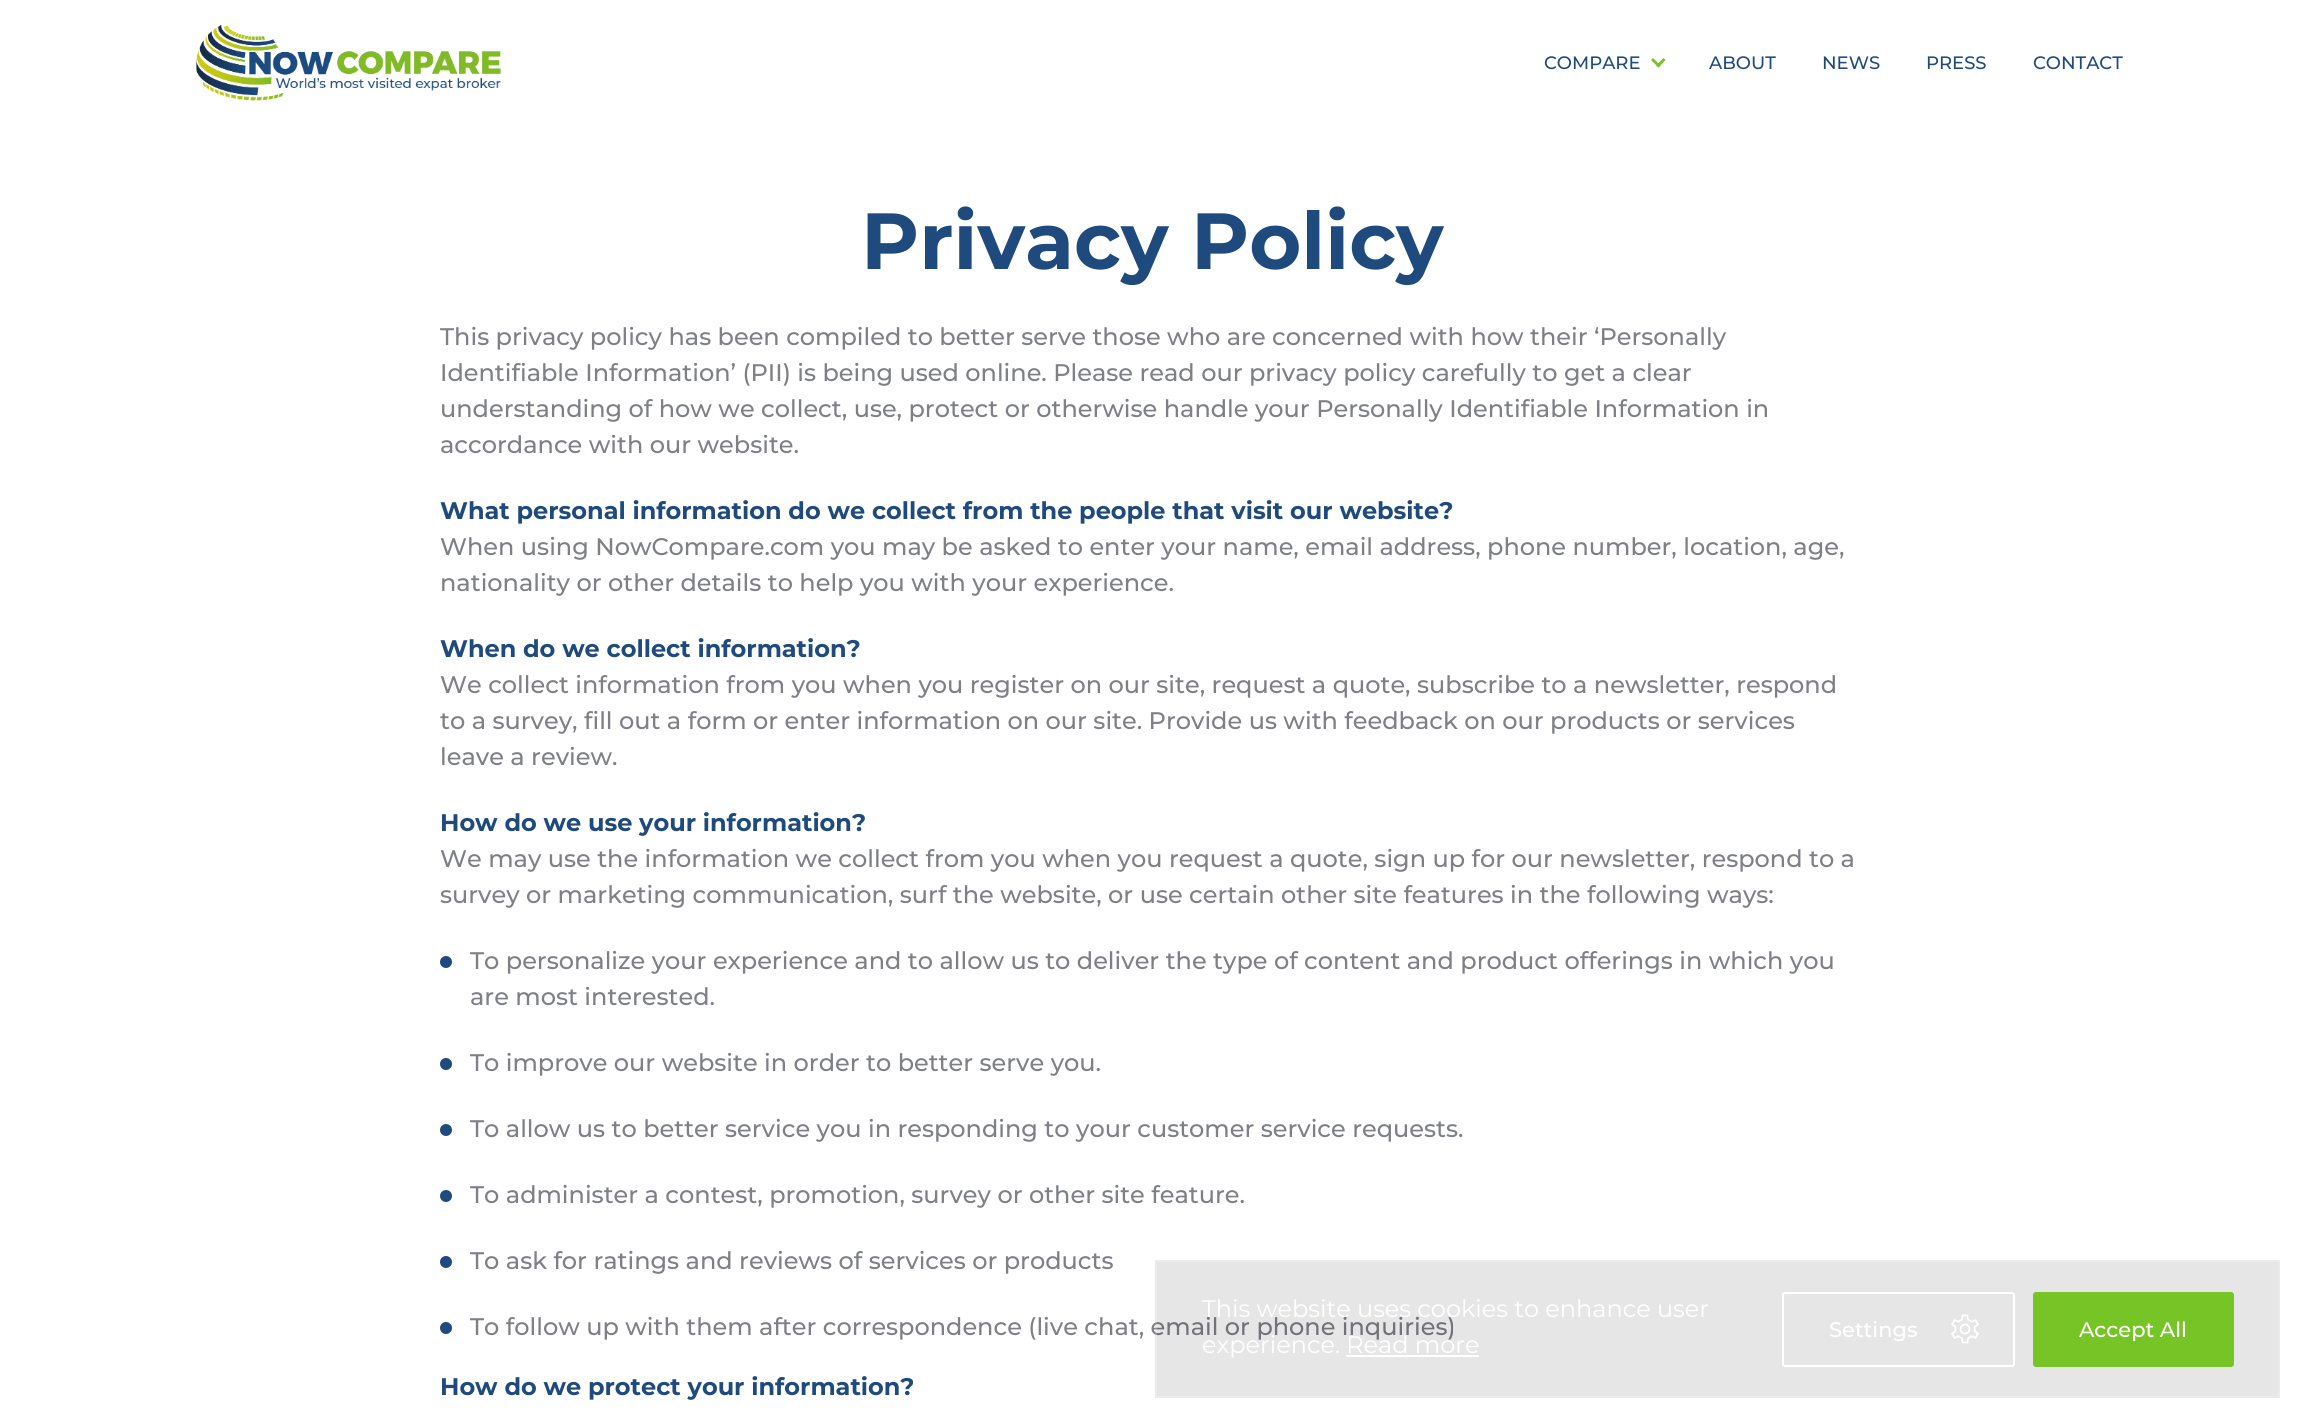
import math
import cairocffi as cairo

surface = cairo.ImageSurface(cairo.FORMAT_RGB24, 2304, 1421)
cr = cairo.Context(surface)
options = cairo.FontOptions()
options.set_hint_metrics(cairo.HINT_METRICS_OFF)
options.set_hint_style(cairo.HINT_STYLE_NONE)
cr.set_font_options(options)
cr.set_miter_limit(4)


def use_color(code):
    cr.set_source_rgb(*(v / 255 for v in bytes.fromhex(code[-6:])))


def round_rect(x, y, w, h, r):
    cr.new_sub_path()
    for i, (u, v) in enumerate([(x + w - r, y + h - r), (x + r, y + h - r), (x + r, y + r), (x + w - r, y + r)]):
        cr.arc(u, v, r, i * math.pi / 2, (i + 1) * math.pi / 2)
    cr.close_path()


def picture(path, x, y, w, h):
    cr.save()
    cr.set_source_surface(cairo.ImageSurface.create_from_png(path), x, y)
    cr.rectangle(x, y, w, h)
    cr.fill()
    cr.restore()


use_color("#ffffff")
cr.paint()
picture("img1.png", 195, 24, 306, 77)
cr.select_font_face("Montserrat Medium")
cr.set_font_size(18)
use_color("#1f4a7d")
cr.move_to(1544, 69)
cr.show_text("COMPARE")
use_color("#77c427")
cr.new_path()
cr.move_to(1665.5, 60)
cr.line_to(1658.5, 67.5)
cr.line_to(1656, 65.5)
cr.line_to(1663.5, 58)
cr.close_path()
cr.fill()
cr.new_path()
cr.move_to(1660.5, 65.5)
cr.line_to(1658.5, 67.5)
cr.line_to(1651, 60)
cr.line_to(1653, 58)
cr.close_path()
cr.fill()
use_color("#1f4a7d")
cr.move_to(1709, 69)
cr.show_text("ABOUT")
cr.move_to(1822, 69)
cr.show_text("NEWS")
cr.move_to(1926, 69)
cr.show_text("PRESS")
cr.move_to(2033, 69)
cr.show_text("CONTACT")
cr.select_font_face("Montserrat", cairo.FONT_SLANT_NORMAL, cairo.FONT_WEIGHT_BOLD)
cr.set_font_size(79.5)
cr.move_to(861, 269)
cr.show_text("Privacy Policy")
cr.select_font_face("Montserrat Medium")
cr.set_font_size(24)
use_color("#7e8085")
cr.move_to(440, 345)
cr.show_text("This privacy policy has been compiled to better serve those who are concerned with how their ‘Personally")
cr.move_to(440, 381)
cr.show_text("Identifiable Information’ (PII) is being used online. Please read our privacy policy carefully to get a clear")
cr.move_to(440, 417)
cr.show_text("understanding of how we collect, use, protect or otherwise handle your Personally Identifiable Information in")
cr.move_to(440, 453)
cr.show_text("accordance with our website.")
cr.select_font_face("Montserrat", cairo.FONT_SLANT_NORMAL, cairo.FONT_WEIGHT_BOLD)
use_color("#1f4a7d")
cr.move_to(440, 519)
cr.show_text("What personal information do we collect from the people that visit our website?")
cr.select_font_face("Montserrat Medium")
use_color("#7e8085")
cr.move_to(440, 555)
cr.show_text("When using NowCompare.com you may be asked to enter your name, email address, phone number, location, age,")
cr.move_to(440, 591)
cr.show_text("nationality or other details to help you with your experience.")
cr.select_font_face("Montserrat", cairo.FONT_SLANT_NORMAL, cairo.FONT_WEIGHT_BOLD)
use_color("#1f4a7d")
cr.move_to(440, 657)
cr.show_text("When do we collect information?")
cr.select_font_face("Montserrat Medium")
use_color("#7e8085")
cr.move_to(440, 693)
cr.show_text("We collect information from you when you register on our site, request a quote, subscribe to a newsletter, respond")
cr.move_to(440, 729)
cr.show_text("to a survey, fill out a form or enter information on our site. Provide us with feedback on our products or services")
cr.move_to(440, 765)
cr.show_text("leave a review.")
cr.select_font_face("Montserrat", cairo.FONT_SLANT_NORMAL, cairo.FONT_WEIGHT_BOLD)
use_color("#1f4a7d")
cr.move_to(440, 831)
cr.show_text("How do we use your information?")
cr.select_font_face("Montserrat Medium")
use_color("#7e8085")
cr.move_to(440, 867)
cr.show_text("We may use the information we collect from you when you request a quote, sign up for our newsletter, respond to a")
cr.move_to(440, 903)
cr.show_text("survey or marketing communication, surf the website, or use certain other site features in the following ways:")
use_color("#1f4a7d")
cr.new_path()
cr.arc(446, 962, 6, 0, 2 * math.pi)
cr.fill()
use_color("#7e8085")
cr.move_to(470, 969)
cr.show_text("To personalize your experience and to allow us to deliver the type of content and product offerings in which you")
cr.move_to(470, 1005)
cr.show_text("are most interested.")
use_color("#1f4a7d")
cr.new_path()
cr.arc(446, 1064, 6, 0, 2 * math.pi)
cr.fill()
use_color("#7e8085")
cr.move_to(470, 1071)
cr.show_text("To improve our website in order to better serve you.")
use_color("#1f4a7d")
cr.new_path()
cr.arc(446, 1130, 6, 0, 2 * math.pi)
cr.fill()
use_color("#7e8085")
cr.move_to(470, 1137)
cr.show_text("To allow us to better service you in responding to your customer service requests.")
use_color("#1f4a7d")
cr.new_path()
cr.arc(446, 1196, 6, 0, 2 * math.pi)
cr.fill()
use_color("#7e8085")
cr.move_to(470, 1203)
cr.show_text("To administer a contest, promotion, survey or other site feature.")
use_color("#1f4a7d")
cr.new_path()
cr.arc(446, 1262, 6, 0, 2 * math.pi)
cr.fill()
use_color("#7e8085")
cr.move_to(470, 1269)
cr.show_text("To ask for ratings and reviews of services or products")
use_color("#1f4a7d")
cr.new_path()
cr.arc(446, 1328, 6, 0, 2 * math.pi)
cr.fill()
use_color("#7e8085")
cr.move_to(470, 1335)
cr.show_text("To follow up with them after correspondence (live chat, email or phone inquiries)")
cr.select_font_face("Montserrat", cairo.FONT_SLANT_NORMAL, cairo.FONT_WEIGHT_BOLD)
use_color("#1f4a7d")
cr.move_to(440, 1395)
cr.show_text("How do we protect your information?")
cr.set_source_rgba(0, 0, 0, 0.1)
cr.rectangle(1155, 1260, 1125, 138)
cr.fill()
cr.rectangle(1156, 1261, 1123, 136)
cr.set_source_rgba(1, 1, 1, 0.2)
cr.stroke()
cr.select_font_face("Montserrat")
use_color("#ffffff")
cr.move_to(1202, 1317)
cr.show_text("This website uses cookies to enhance user")
cr.move_to(1202, 1353)
cr.show_text("experience. Read more")
cr.rectangle(1346, 1355, 133, 2)
cr.fill()
round_rect(1783, 1293, 231, 73, 2)
cr.stroke()
cr.select_font_face("Montserrat Medium")
cr.set_font_size(21)
cr.move_to(1829, 1337)
cr.show_text("Settings")
picture("img2.png", 1951, 1314, 28, 30)
use_color("#77c427")
round_rect(2034, 1293, 199, 73, 2)
cr.fill_preserve()
cr.stroke()
use_color("#ffffff")
cr.move_to(2079, 1337)
cr.show_text("Accept All")
surface.write_to_png("result.png")
